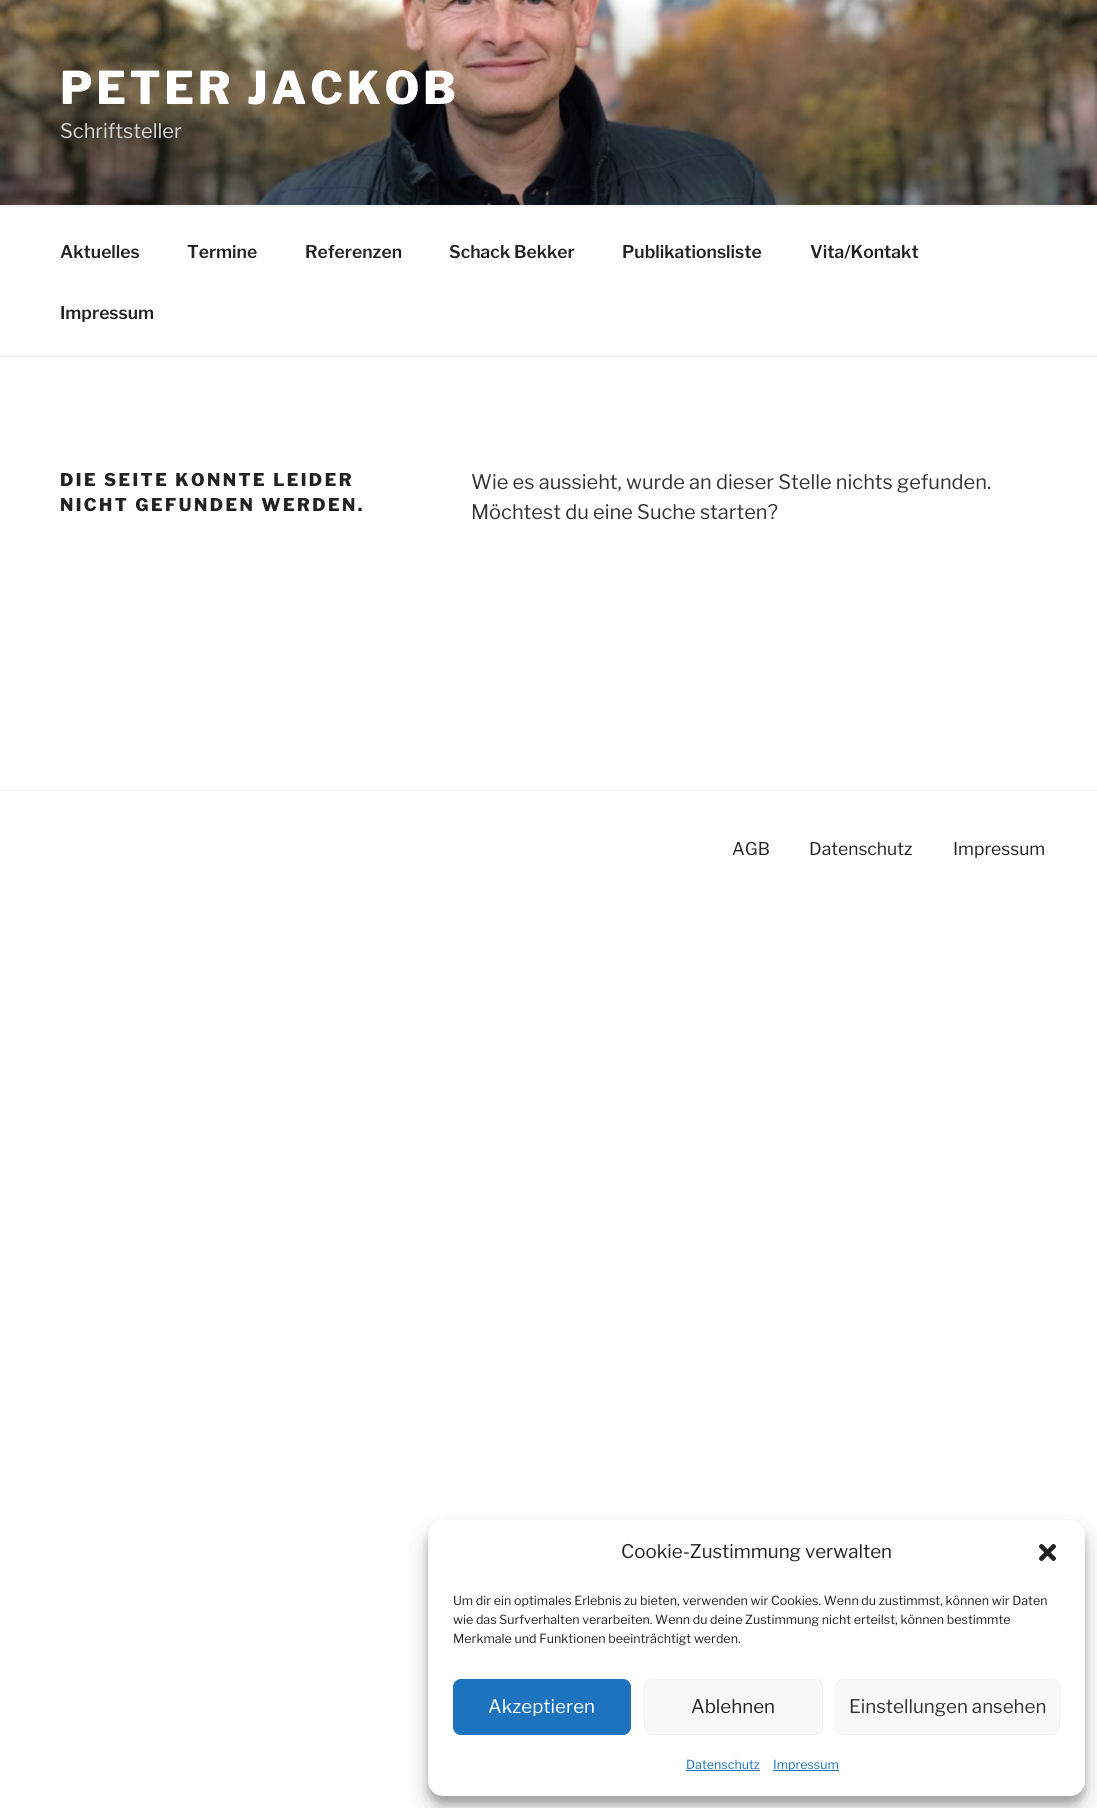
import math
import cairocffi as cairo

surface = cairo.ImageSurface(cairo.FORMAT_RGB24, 1097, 1808)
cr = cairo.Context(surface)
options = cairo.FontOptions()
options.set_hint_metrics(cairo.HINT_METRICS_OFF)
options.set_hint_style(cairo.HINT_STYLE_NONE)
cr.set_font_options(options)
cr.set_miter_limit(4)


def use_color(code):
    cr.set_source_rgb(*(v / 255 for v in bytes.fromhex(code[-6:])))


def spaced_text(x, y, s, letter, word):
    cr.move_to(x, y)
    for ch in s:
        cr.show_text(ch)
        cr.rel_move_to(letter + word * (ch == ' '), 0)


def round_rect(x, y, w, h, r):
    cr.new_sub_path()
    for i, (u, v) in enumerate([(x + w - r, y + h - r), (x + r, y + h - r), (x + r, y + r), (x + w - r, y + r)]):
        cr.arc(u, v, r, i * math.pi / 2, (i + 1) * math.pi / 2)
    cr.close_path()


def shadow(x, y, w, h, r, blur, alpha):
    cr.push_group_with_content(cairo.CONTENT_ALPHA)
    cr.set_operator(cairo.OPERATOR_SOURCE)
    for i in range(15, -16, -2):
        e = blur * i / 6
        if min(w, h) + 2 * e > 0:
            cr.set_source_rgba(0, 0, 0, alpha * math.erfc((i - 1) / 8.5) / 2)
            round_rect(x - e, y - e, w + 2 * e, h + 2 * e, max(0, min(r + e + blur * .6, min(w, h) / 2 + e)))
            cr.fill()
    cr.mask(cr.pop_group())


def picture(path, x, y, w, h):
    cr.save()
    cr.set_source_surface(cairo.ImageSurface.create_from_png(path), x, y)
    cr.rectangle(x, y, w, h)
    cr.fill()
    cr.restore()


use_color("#ffffff")
cr.paint()
use_color("#fafafa")
cr.rectangle(0, 205, 1097, 1)
cr.fill()
picture("img1.png", 0, 0, 1097, 205)
cr.select_font_face("Libre Franklin Thin")
cr.set_font_size(45)
use_color("#ffffff")
spaced_text(60, 104, "PETER JACKOB", 3.6, 0)
cr.select_font_face("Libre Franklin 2 Thin")
cr.set_font_size(20)
use_color("#d8d7d5")
cr.move_to(60, 138)
cr.show_text("Schriftsteller")
use_color("#eeeeee")
cr.rectangle(0, 206, 1097, 1)
cr.fill()
cr.rectangle(0, 356, 1097, 1)
cr.fill()
cr.select_font_face("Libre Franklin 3 Thin")
cr.set_font_size(17.5)
use_color("#222222")
cr.move_to(60, 258)
cr.show_text("Aktuelles")
cr.move_to(187, 258)
cr.show_text("Termine")
cr.move_to(305, 258)
cr.show_text("Referenzen")
cr.move_to(449, 258)
cr.show_text("Schack Bekker")
cr.move_to(622, 258)
cr.show_text("Publikationsliste")
cr.move_to(810, 258)
cr.show_text("Vita/Kontakt")
cr.move_to(60, 319)
cr.show_text("Impressum")
cr.select_font_face("Libre Franklin Thin")
spaced_text(60, 486, "DIE SEITE KONNTE LEIDER", 2.45, 0)
spaced_text(60, 511, "NICHT GEFUNDEN WERDEN.", 2.45, 0)
cr.select_font_face("Libre Franklin 2 Thin")
cr.set_font_size(20)
use_color("#333333")
cr.move_to(471, 489)
cr.show_text("Wie es aussieht, wurde an dieser Stelle nichts gefunden.")
cr.move_to(471, 519)
cr.show_text("Möchtest du eine Suche starten?")
use_color("#eeeeee")
cr.rectangle(0, 790, 1097, 1)
cr.fill()
cr.set_font_size(17.5)
use_color("#222222")
cr.move_to(732, 855)
cr.show_text("AGB")
cr.move_to(809, 855)
cr.show_text("Datenschutz")
cr.move_to(953, 855)
cr.show_text("Impressum")
use_color("#000000")
shadow(428, 1528, 657, 276, 15, 4, 0.23)
shadow(428, 1533, 657, 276, 15, 12.5, 0.19)
use_color("#ffffff")
round_rect(428, 1520, 657, 276, 15)
cr.fill()
cr.set_font_size(18.75)
use_color("#222222")
cr.move_to(621, 1558)
cr.show_text("Cookie-Zustimmung verwalten")
picture("img2.png", 1038, 1543, 19, 19)
cr.set_font_size(12.5)
cr.move_to(453, 1605)
cr.show_text("Um dir ein optimales Erlebnis zu bieten, verwenden wir Cookies. Wenn du zustimmst, können wir Daten")
cr.move_to(453, 1624)
cr.show_text("wie das Surfverhalten verarbeiten. Wenn du deine Zustimmung nicht erteilst, können bestimmte")
cr.move_to(453, 1643)
cr.show_text("Merkmale und Funktionen beeinträchtigt werden.")
use_color("#1e73be")
round_rect(453.5, 1679.5, 177, 55, 7.5)
cr.fill_preserve()
cr.set_line_width(1)
cr.stroke()
cr.set_font_size(18.75)
use_color("#ffffff")
cr.move_to(488, 1713)
cr.show_text("Akzeptieren")
use_color("#f9f9f9")
round_rect(644.5, 1679.5, 178, 55, 7.5)
cr.fill_preserve()
use_color("#f2f2f2")
cr.stroke()
use_color("#222222")
cr.move_to(691, 1713)
cr.show_text("Ablehnen")
use_color("#f9f9f9")
round_rect(835.5, 1679.5, 224, 55, 7.5)
cr.fill_preserve()
use_color("#f2f2f2")
cr.stroke()
use_color("#333333")
cr.move_to(849, 1713)
cr.show_text("Einstellungen ansehen")
cr.set_font_size(12.5)
use_color("#1e73be")
cr.move_to(686, 1769)
cr.show_text("Datenschutz")
cr.rectangle(686, 1770, 74, 1)
cr.fill()
cr.rectangle(773, 1770, 66, 1)
cr.fill()
cr.move_to(773, 1769)
cr.show_text("Impressum")
surface.write_to_png("result.png")
